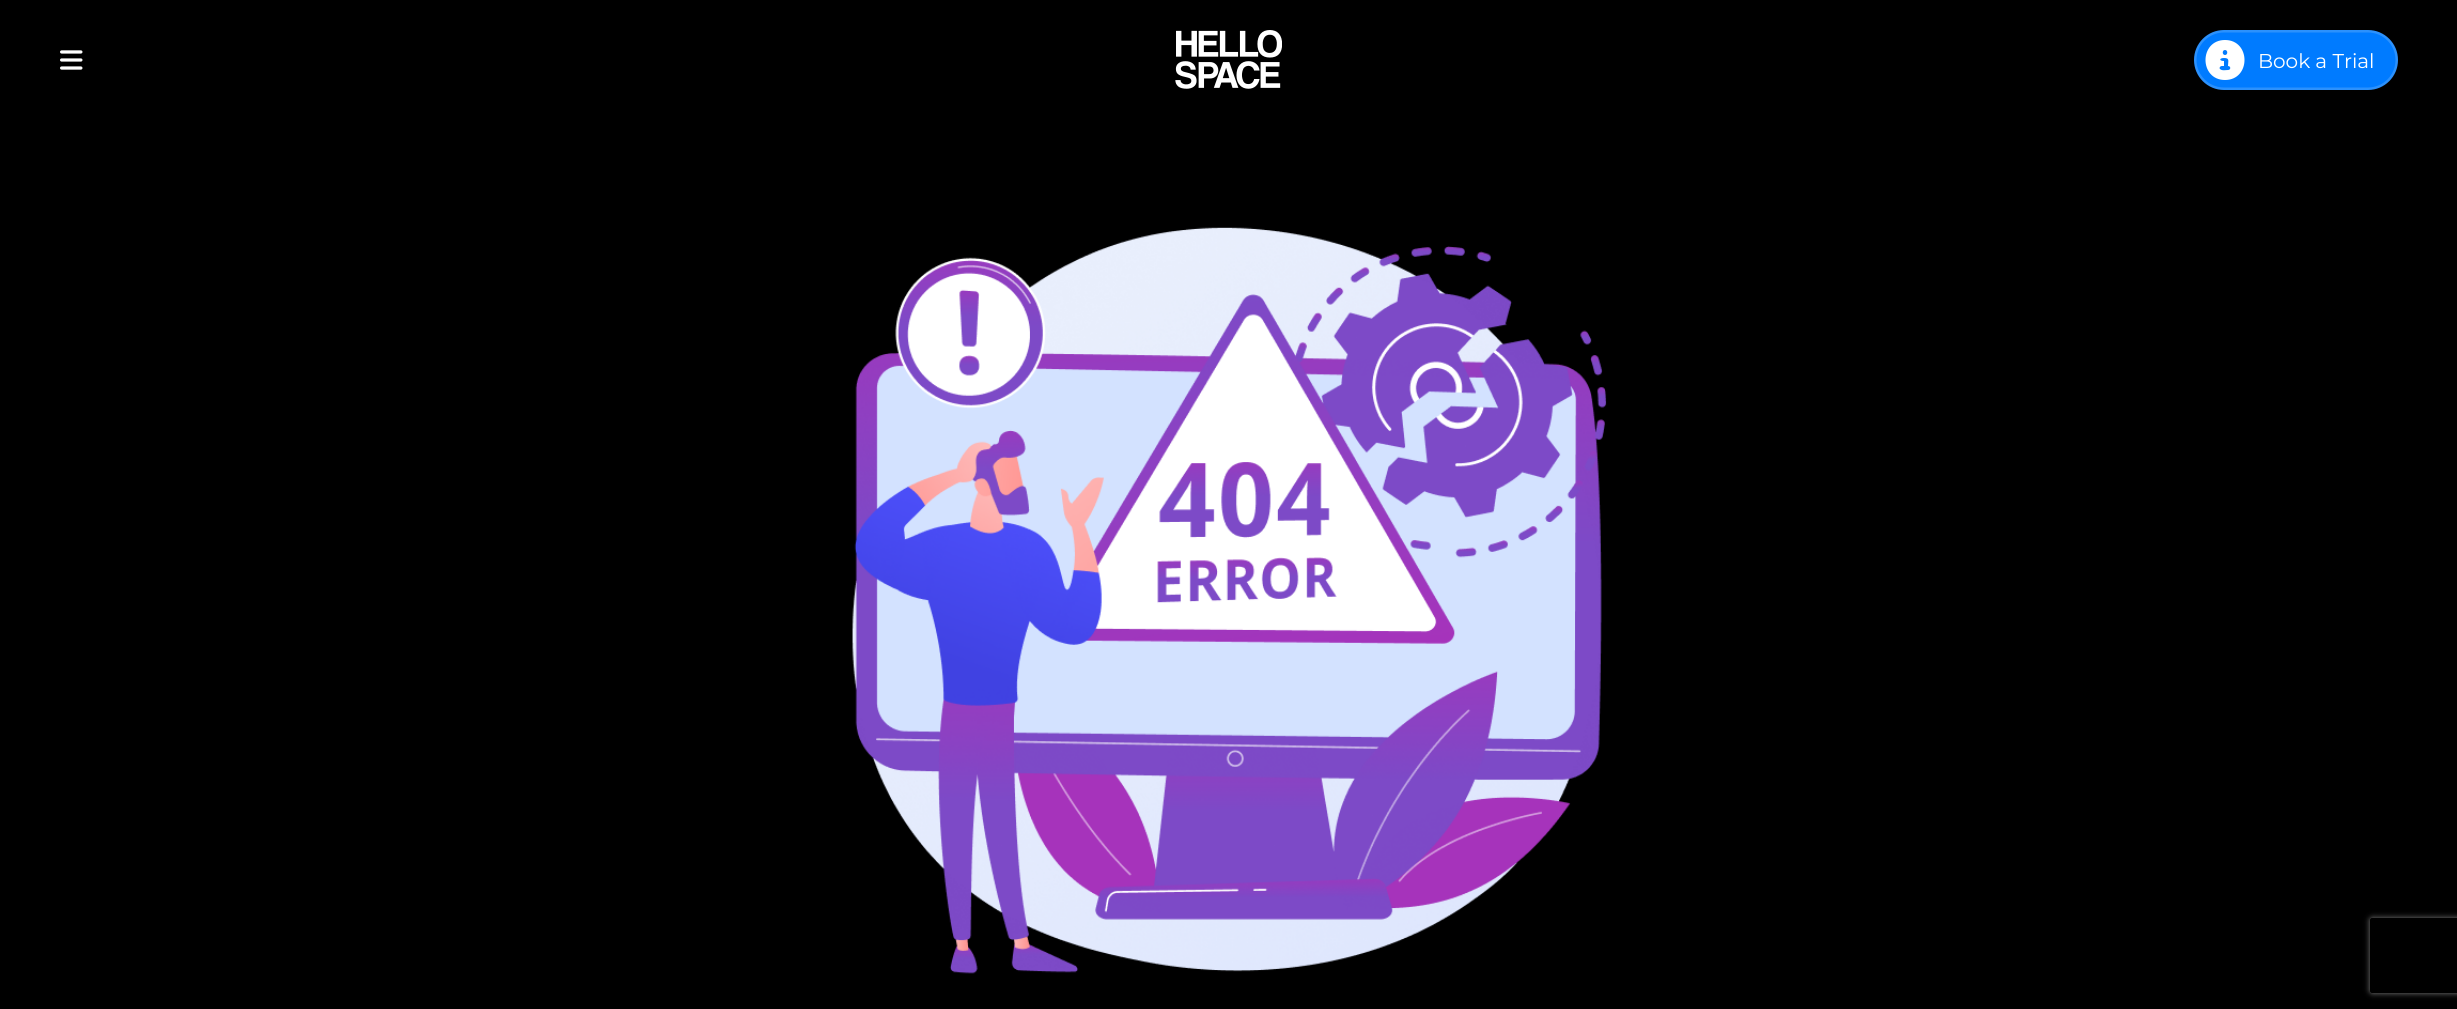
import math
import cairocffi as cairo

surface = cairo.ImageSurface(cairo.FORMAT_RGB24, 2457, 1009)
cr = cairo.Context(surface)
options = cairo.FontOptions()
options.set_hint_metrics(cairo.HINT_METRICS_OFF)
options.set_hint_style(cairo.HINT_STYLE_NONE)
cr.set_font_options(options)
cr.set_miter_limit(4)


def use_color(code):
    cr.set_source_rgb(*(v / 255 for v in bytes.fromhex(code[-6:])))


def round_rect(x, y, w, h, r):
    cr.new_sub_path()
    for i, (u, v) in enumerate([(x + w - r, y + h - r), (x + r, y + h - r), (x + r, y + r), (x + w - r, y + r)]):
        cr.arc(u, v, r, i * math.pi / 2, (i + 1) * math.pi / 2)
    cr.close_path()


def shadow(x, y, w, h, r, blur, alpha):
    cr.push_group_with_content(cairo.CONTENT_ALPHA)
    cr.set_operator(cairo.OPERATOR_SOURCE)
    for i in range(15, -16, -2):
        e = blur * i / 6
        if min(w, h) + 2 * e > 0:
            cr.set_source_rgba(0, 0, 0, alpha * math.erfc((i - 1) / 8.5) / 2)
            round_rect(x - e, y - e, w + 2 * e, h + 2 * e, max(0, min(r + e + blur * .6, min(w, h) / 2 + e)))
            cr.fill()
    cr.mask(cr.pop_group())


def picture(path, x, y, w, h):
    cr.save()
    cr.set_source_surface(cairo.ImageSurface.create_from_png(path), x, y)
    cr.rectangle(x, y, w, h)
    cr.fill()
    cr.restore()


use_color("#000000")
cr.paint()
picture("img1.png", 60, 50, 23, 20)
picture("img2.png", 1175, 30, 107, 59)
use_color("#007bff")
round_rect(2195.25, 31.25, 201.5, 57.5, 28.75)
cr.fill_preserve()
use_color("#2c91fc")
cr.set_line_width(2.5)
cr.stroke()
cr.select_font_face("Montserrat")
cr.set_font_size(20)
use_color("#ffffff")
cr.move_to(2258, 68)
cr.show_text("Book a Trial")
cr.new_path()
cr.move_to(2225, 80)
cr.curve_to(2251, 80, 2251, 40, 2225, 40)
cr.curve_to(2199, 40, 2199, 80, 2225, 80)
cr.close_path()
cr.move_to(2222, 66)
cr.line_to(2224, 66)
cr.line_to(2224, 61)
cr.curve_to(2219, 61, 2219, 58, 2224, 58)
cr.curve_to(2230, 58, 2228, 61, 2228, 66)
cr.curve_to(2231, 66, 2231, 70, 2228, 70)
cr.curve_to(2226, 70, 2222, 71, 2220, 69)
cr.curve_to(2219, 68, 2220, 66, 2222, 66)
cr.close_path()
cr.move_to(2225, 50)
cr.curve_to(2228, 50, 2228, 55, 2225, 55)
cr.curve_to(2222, 55, 2222, 50, 2225, 50)
cr.close_path()
cr.fill()
picture("img3.png", 852, 227, 755, 747)
cr.save()
cr.set_fill_rule(cairo.FILL_RULE_EVEN_ODD)
cr.new_path()
cr.move_to(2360, 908)
cr.line_to(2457, 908)
cr.line_to(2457, 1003)
cr.line_to(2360, 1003)
cr.close_path()
cr.move_to(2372.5, 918)
cr.line_to(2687.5, 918)
cr.curve_to(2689, 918, 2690, 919, 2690, 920.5)
cr.line_to(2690, 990.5)
cr.curve_to(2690, 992, 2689, 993, 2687.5, 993)
cr.line_to(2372.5, 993)
cr.curve_to(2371, 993, 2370, 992, 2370, 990.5)
cr.line_to(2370, 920.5)
cr.curve_to(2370, 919, 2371, 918, 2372.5, 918)
cr.close_path()
cr.clip()
use_color("#808080")
shadow(2370, 918, 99, 75, 2.5, 3, 1)
cr.restore()
surface.write_to_png("result.png")
